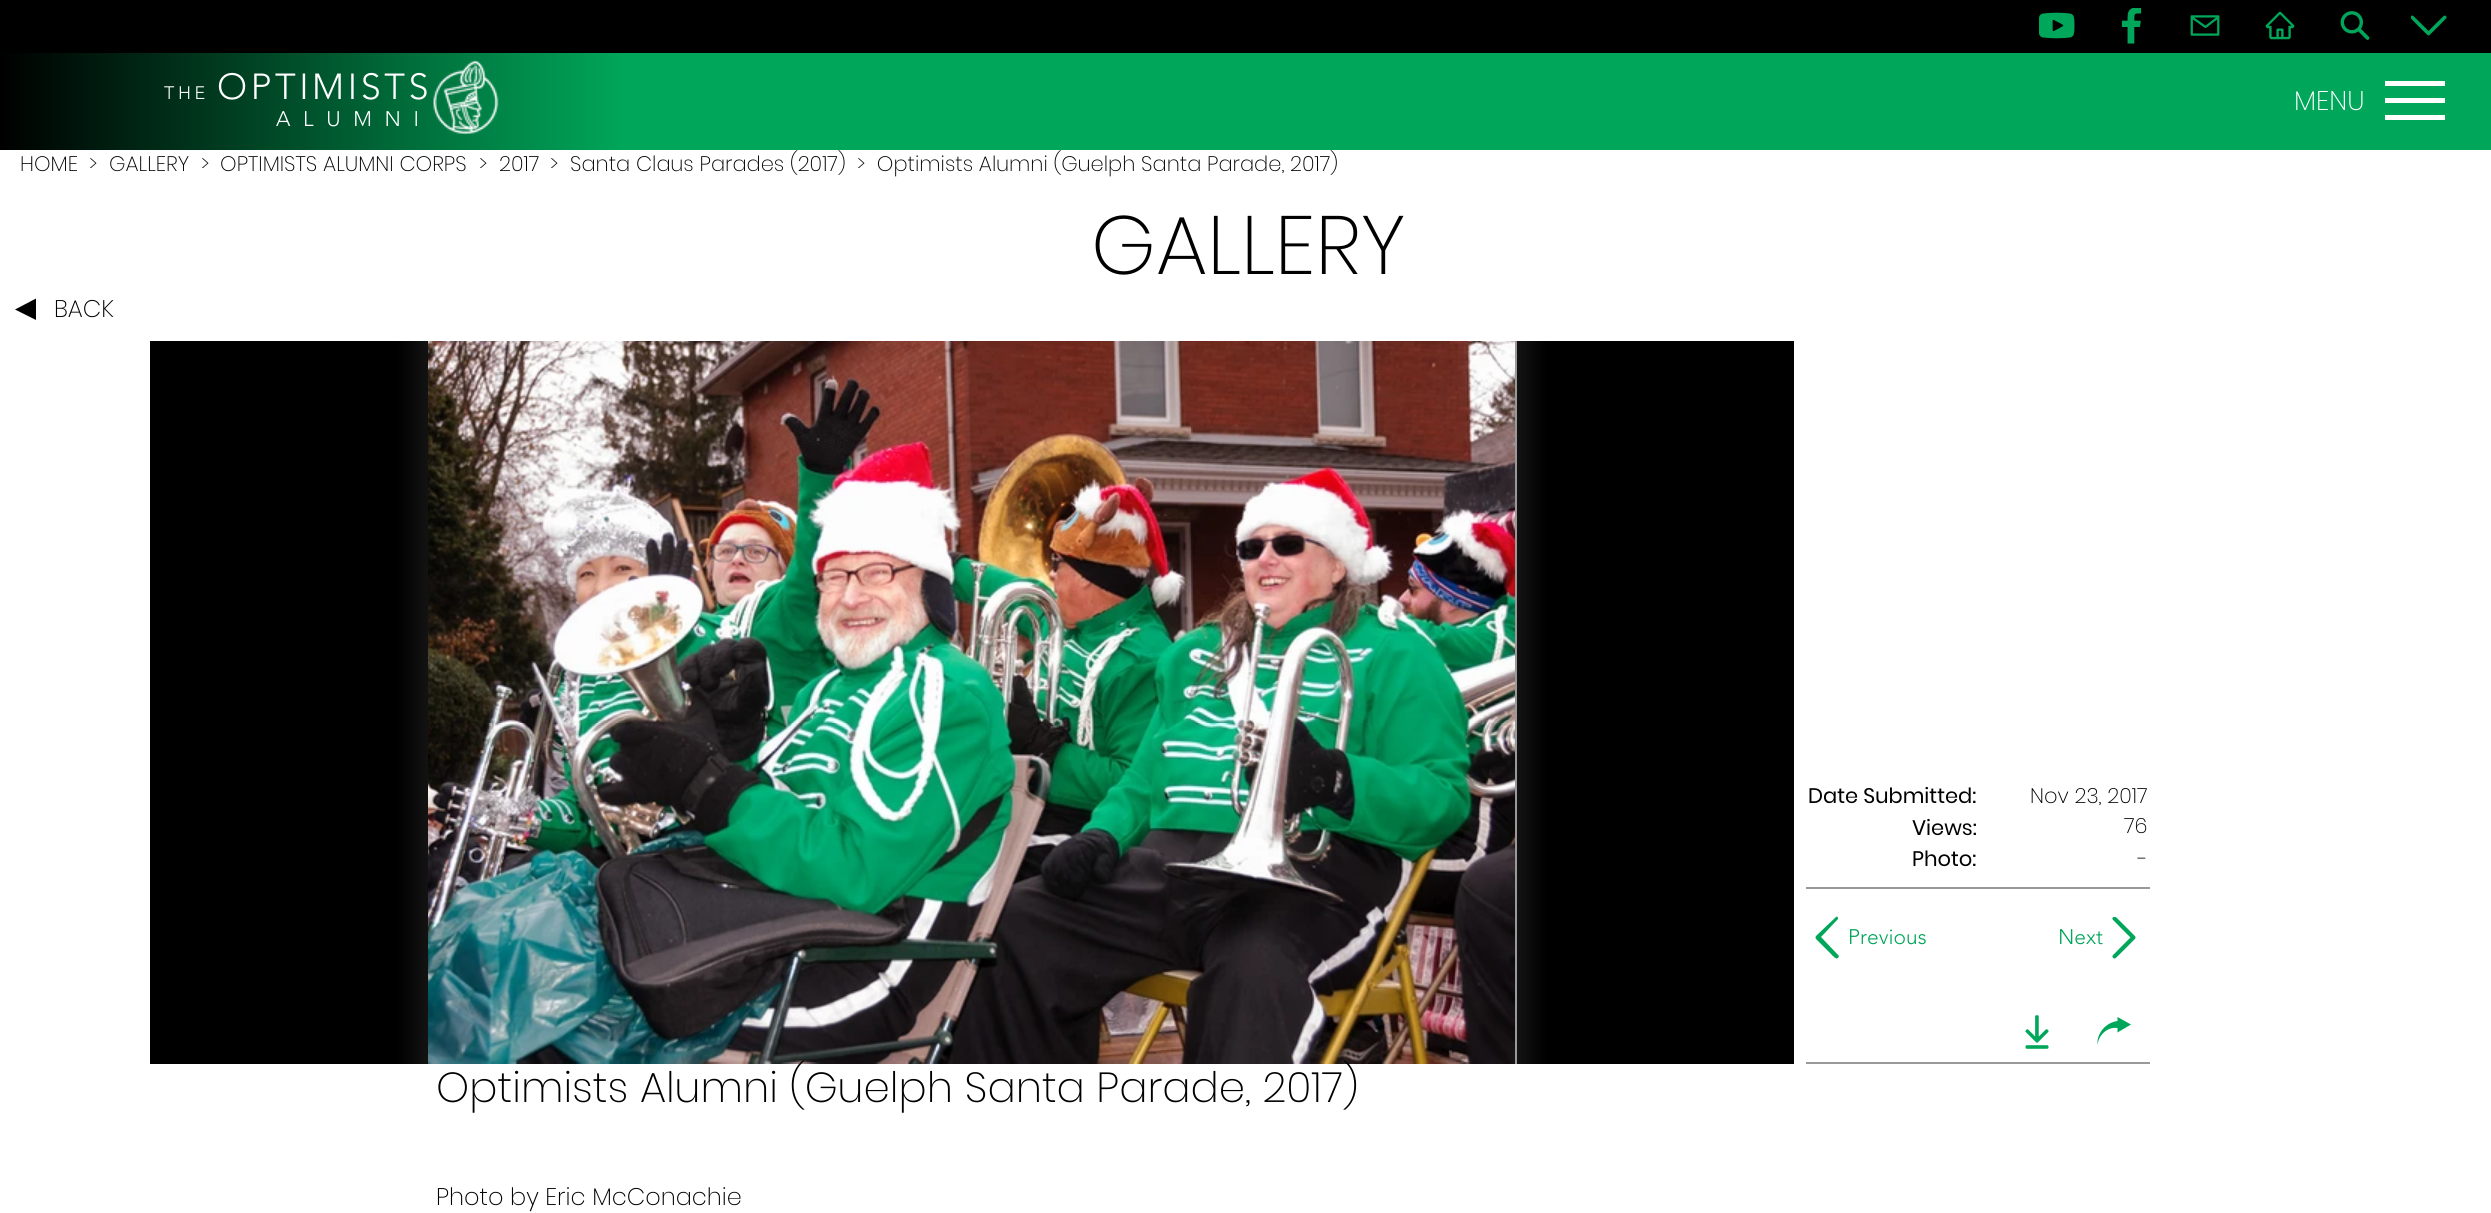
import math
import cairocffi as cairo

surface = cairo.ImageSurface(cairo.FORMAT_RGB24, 2491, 1213)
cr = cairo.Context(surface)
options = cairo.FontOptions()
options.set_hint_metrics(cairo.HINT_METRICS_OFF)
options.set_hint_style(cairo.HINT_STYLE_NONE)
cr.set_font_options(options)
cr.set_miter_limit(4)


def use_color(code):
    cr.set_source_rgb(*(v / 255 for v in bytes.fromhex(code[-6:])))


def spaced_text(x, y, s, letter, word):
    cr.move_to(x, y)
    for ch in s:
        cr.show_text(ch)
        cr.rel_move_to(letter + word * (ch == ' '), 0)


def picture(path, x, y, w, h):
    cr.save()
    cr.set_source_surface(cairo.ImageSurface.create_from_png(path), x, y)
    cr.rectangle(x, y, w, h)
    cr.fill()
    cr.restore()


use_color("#ffffff")
cr.paint()
use_color("#000000")
cr.rectangle(0, 0, 2491, 53)
cr.fill()
picture("img1.png", 2039, 12, 36, 27)
picture("img2.png", 2121, 8, 21, 36)
picture("img3.png", 2190, 15, 30, 21)
picture("img4.png", 2265, 11, 30, 29)
picture("img5.png", 2340, 11, 30, 29)
picture("img6.png", 2411, 15, 36, 21)
use_color("#00a659")
cr.rectangle(623, 53, 1868, 97)
cr.fill()
gradient = cairo.LinearGradient(0, 101, 623, 101)
gradient.add_color_stop_rgba(0, 0, 0, 0, 1)
gradient.add_color_stop_rgba(1, 0, 0.651, 0.349, 1)
cr.set_source(gradient)
cr.rectangle(0, 53, 623, 97)
cr.fill()
cr.select_font_face("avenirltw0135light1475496 Light")
cr.set_font_size(18)
use_color("#ffffff")
spaced_text(164, 99, "THE", 3.6, 0)
cr.set_font_size(36)
spaced_text(217, 99, "OPTIMISTS", 3.6, 0)
cr.set_font_size(21)
spaced_text(276, 126, "A L U M N I", 3.6, 0)
picture("img7.png", 433, 60, 66, 75)
cr.select_font_face("Poppins ExtraLight")
cr.set_font_size(27)
cr.move_to(2294, 110)
cr.show_text("MENU")
cr.rectangle(2385, 115, 60, 5)
cr.fill()
cr.rectangle(2385, 81, 60, 5)
cr.fill()
cr.rectangle(2385, 98, 60, 5)
cr.fill()
cr.set_font_size(21)
use_color("#000000")
cr.move_to(20, 171)
cr.show_text("HOME")
cr.move_to(89, 171)
cr.show_text(">")
cr.move_to(109, 171)
cr.show_text("GALLERY")
cr.move_to(201, 171)
cr.show_text(">")
cr.move_to(220, 171)
cr.show_text("OPTIMISTS ALUMNI CORPS")
cr.move_to(479, 171)
cr.show_text(">")
cr.move_to(499, 171)
cr.show_text("2017")
cr.move_to(550, 171)
cr.show_text(">")
cr.move_to(570, 171)
cr.show_text("Santa Claus Parades (2017)")
cr.move_to(857, 171)
cr.show_text(">  Optimists Alumni (Guelph Santa Parade, 2017)")
cr.set_font_size(82.5)
cr.move_to(1091, 274)
cr.show_text("GALLERY")
cr.new_path()
cr.move_to(36, 320)
cr.line_to(15, 309.5)
cr.line_to(36, 298.5)
cr.close_path()
cr.fill()
cr.set_font_size(24)
cr.move_to(54, 317)
cr.show_text("BACK")
gradient = cairo.LinearGradient(150, 702, 1794, 702)
gradient.add_color_stop_rgba(0.15, 0, 0, 0, 1)
gradient.add_color_stop_rgba(0.41, 1, 1, 1, 1)
gradient.add_color_stop_rgba(0.6, 1, 1, 1, 1)
gradient.add_color_stop_rgba(0.85, 0, 0, 0, 1)
cr.set_source(gradient)
cr.rectangle(150, 341, 1644, 723)
cr.fill()
use_color("#999999")
cr.rectangle(1515, 341, 2, 723)
cr.fill()
picture("img8.png", 428, 341, 1087, 723)
cr.select_font_face("Poppins")
cr.set_font_size(21)
use_color("#000000")
cr.move_to(1808, 803)
cr.show_text("Date Submitted:")
cr.select_font_face("Poppins ExtraLight")
cr.move_to(2030, 803)
cr.show_text("Nov 23, 2017")
cr.select_font_face("Poppins")
cr.move_to(1912, 835)
cr.show_text("Views:")
cr.select_font_face("Poppins ExtraLight")
cr.move_to(2124, 833)
cr.show_text("76")
cr.select_font_face("Poppins")
cr.move_to(1912, 866)
cr.show_text("Photo:")
cr.select_font_face("Poppins ExtraLight")
cr.move_to(2138, 866)
cr.show_text("-")
use_color("#999999")
cr.rectangle(1806, 887, 344, 2)
cr.fill()
use_color("#00a659")
cr.new_path()
cr.move_to(1836, 917)
cr.line_to(1817, 935)
cr.curve_to(1815, 937, 1815, 938, 1817, 940)
cr.line_to(1831, 954)
cr.curve_to(1832, 955, 1836, 960, 1838, 958)
cr.line_to(1839, 956)
cr.line_to(1821, 937)
cr.line_to(1838, 919)
cr.line_to(1838, 918)
cr.curve_to(1838, 917, 1837, 916, 1836, 917)
cr.close_path()
cr.fill()
cr.select_font_face("avenirltw0135light1475496 Light")
cr.move_to(1848, 944)
cr.show_text("Previous")
cr.move_to(2058, 944)
cr.show_text("Next")
picture("img9.png", 2112, 917, 24, 42)
picture("img10.png", 2025, 1015, 24, 34)
cr.new_path()
cr.move_to(2097.5, 1045)
cr.curve_to(2098.5, 1035, 2107.5, 1026.5, 2117.5, 1028)
cr.line_to(2117.5, 1032.5)
cr.line_to(2131, 1024.5)
cr.line_to(2117.5, 1017)
cr.line_to(2117.5, 1021)
cr.curve_to(2106, 1022.5, 2096.5, 1033, 2097.5, 1045)
cr.close_path()
cr.fill()
use_color("#999999")
cr.rectangle(1806, 1062, 344, 2)
cr.fill()
cr.select_font_face("Poppins ExtraLight")
cr.set_font_size(42)
use_color("#000000")
cr.move_to(436, 1102)
cr.show_text("Optimists Alumni (Guelph Santa Parade, 2017)")
cr.set_font_size(24)
cr.move_to(436, 1205)
cr.show_text("Photo by Eric McConachie")
surface.write_to_png("result.png")
